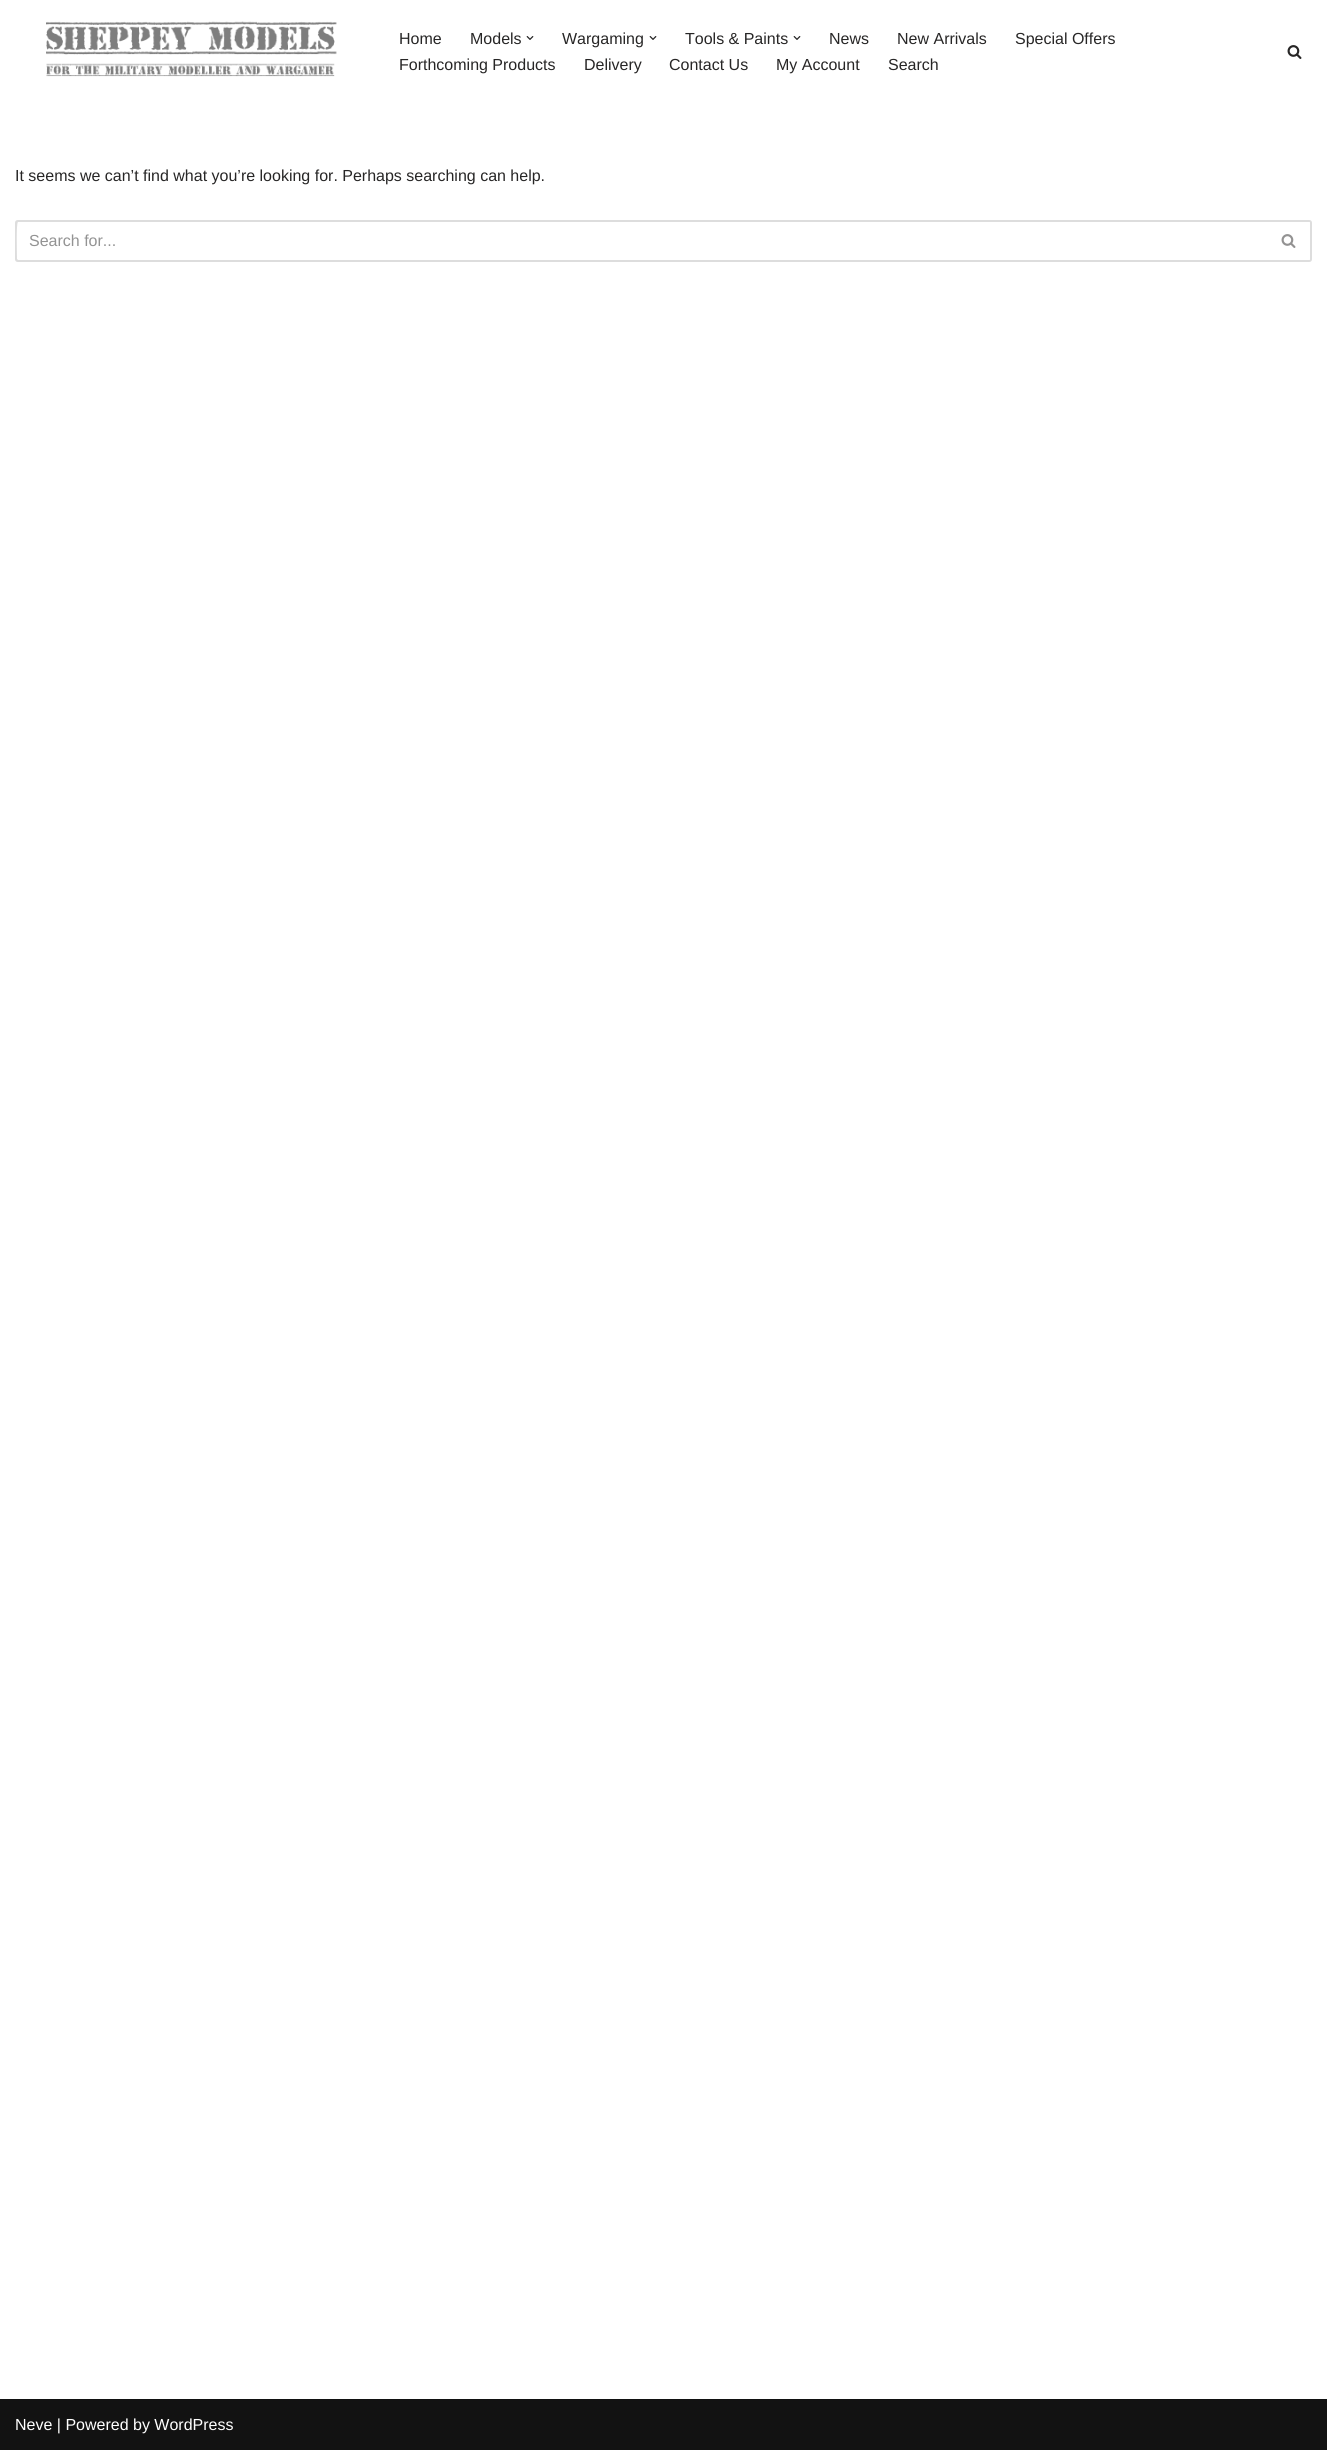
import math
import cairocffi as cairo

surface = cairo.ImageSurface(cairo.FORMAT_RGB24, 1327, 2450)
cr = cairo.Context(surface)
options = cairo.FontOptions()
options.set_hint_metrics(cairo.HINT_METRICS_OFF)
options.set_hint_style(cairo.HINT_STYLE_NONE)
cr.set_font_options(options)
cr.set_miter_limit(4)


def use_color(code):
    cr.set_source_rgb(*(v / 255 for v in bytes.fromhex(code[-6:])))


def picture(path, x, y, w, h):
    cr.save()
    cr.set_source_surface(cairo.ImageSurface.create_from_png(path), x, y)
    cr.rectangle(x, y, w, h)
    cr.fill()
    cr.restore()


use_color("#ffffff")
cr.paint()
picture("img1.png", 46, 21, 291, 56)
cr.select_font_face("Liberation Sans")
cr.set_font_size(16)
use_color("#272626")
cr.move_to(399, 44)
cr.show_text("Home")
cr.move_to(470, 44)
cr.show_text("Models")
picture("img2.png", 526, 36, 8, 4)
cr.move_to(562, 44)
cr.show_text("Wargaming")
picture("img2.png", 649, 36, 8, 4)
cr.move_to(685, 44)
cr.show_text("Tools & Paints")
picture("img2.png", 793, 36, 8, 4)
cr.move_to(829, 44)
cr.show_text("News")
cr.move_to(897, 44)
cr.show_text("New Arrivals")
cr.move_to(1015, 44)
cr.show_text("Special Offers")
cr.move_to(399, 70)
cr.show_text("Forthcoming Products")
cr.move_to(584, 70)
cr.show_text("Delivery")
cr.move_to(669, 70)
cr.show_text("Contact Us")
cr.move_to(776, 70)
cr.show_text("My Account")
cr.move_to(888, 70)
cr.show_text("Search")
picture("img3.png", 1287, 45, 15, 14)
cr.move_to(15, 181)
cr.show_text("It seems we can’t find what you’re looking for. Perhaps searching can help.")
use_color("#dddddd")
cr.set_fill_rule(cairo.FILL_RULE_EVEN_ODD)
cr.new_path()
cr.move_to(18, 220)
cr.line_to(1267, 220)
cr.line_to(1267, 262)
cr.line_to(18, 262)
cr.curve_to(16, 262, 15, 261, 15, 259)
cr.line_to(15, 223)
cr.curve_to(15, 221, 16, 220, 18, 220)
cr.close_path()
cr.move_to(18, 222)
cr.line_to(1267, 222)
cr.line_to(1267, 260)
cr.line_to(18, 260)
cr.line_to(17, 259)
cr.curve_to(17, 254, 16, 223, 18, 222)
cr.close_path()
cr.fill()
use_color("#939393")
cr.move_to(29, 246)
cr.show_text("Search for...")
use_color("#dddddd")
cr.new_path()
cr.move_to(1267, 220)
cr.line_to(1309, 220)
cr.curve_to(1311, 220, 1312, 221, 1312, 223)
cr.line_to(1312, 259)
cr.curve_to(1312, 261, 1311, 262, 1309, 262)
cr.line_to(1267, 262)
cr.close_path()
cr.move_to(1267, 222)
cr.line_to(1309, 222)
cr.curve_to(1310, 222, 1310, 222, 1310, 223)
cr.line_to(1310, 259)
cr.curve_to(1310, 260, 1310, 260, 1309, 260)
cr.line_to(1267, 260)
cr.close_path()
cr.fill()
picture("img4.png", 1281, 234, 15, 14)
use_color("#121212")
cr.rectangle(0, 2399, 1327, 51)
cr.fill()
use_color("#ffffff")
cr.move_to(15, 2430)
cr.show_text("Neve | Powered by WordPress")
surface.write_to_png("result.png")
